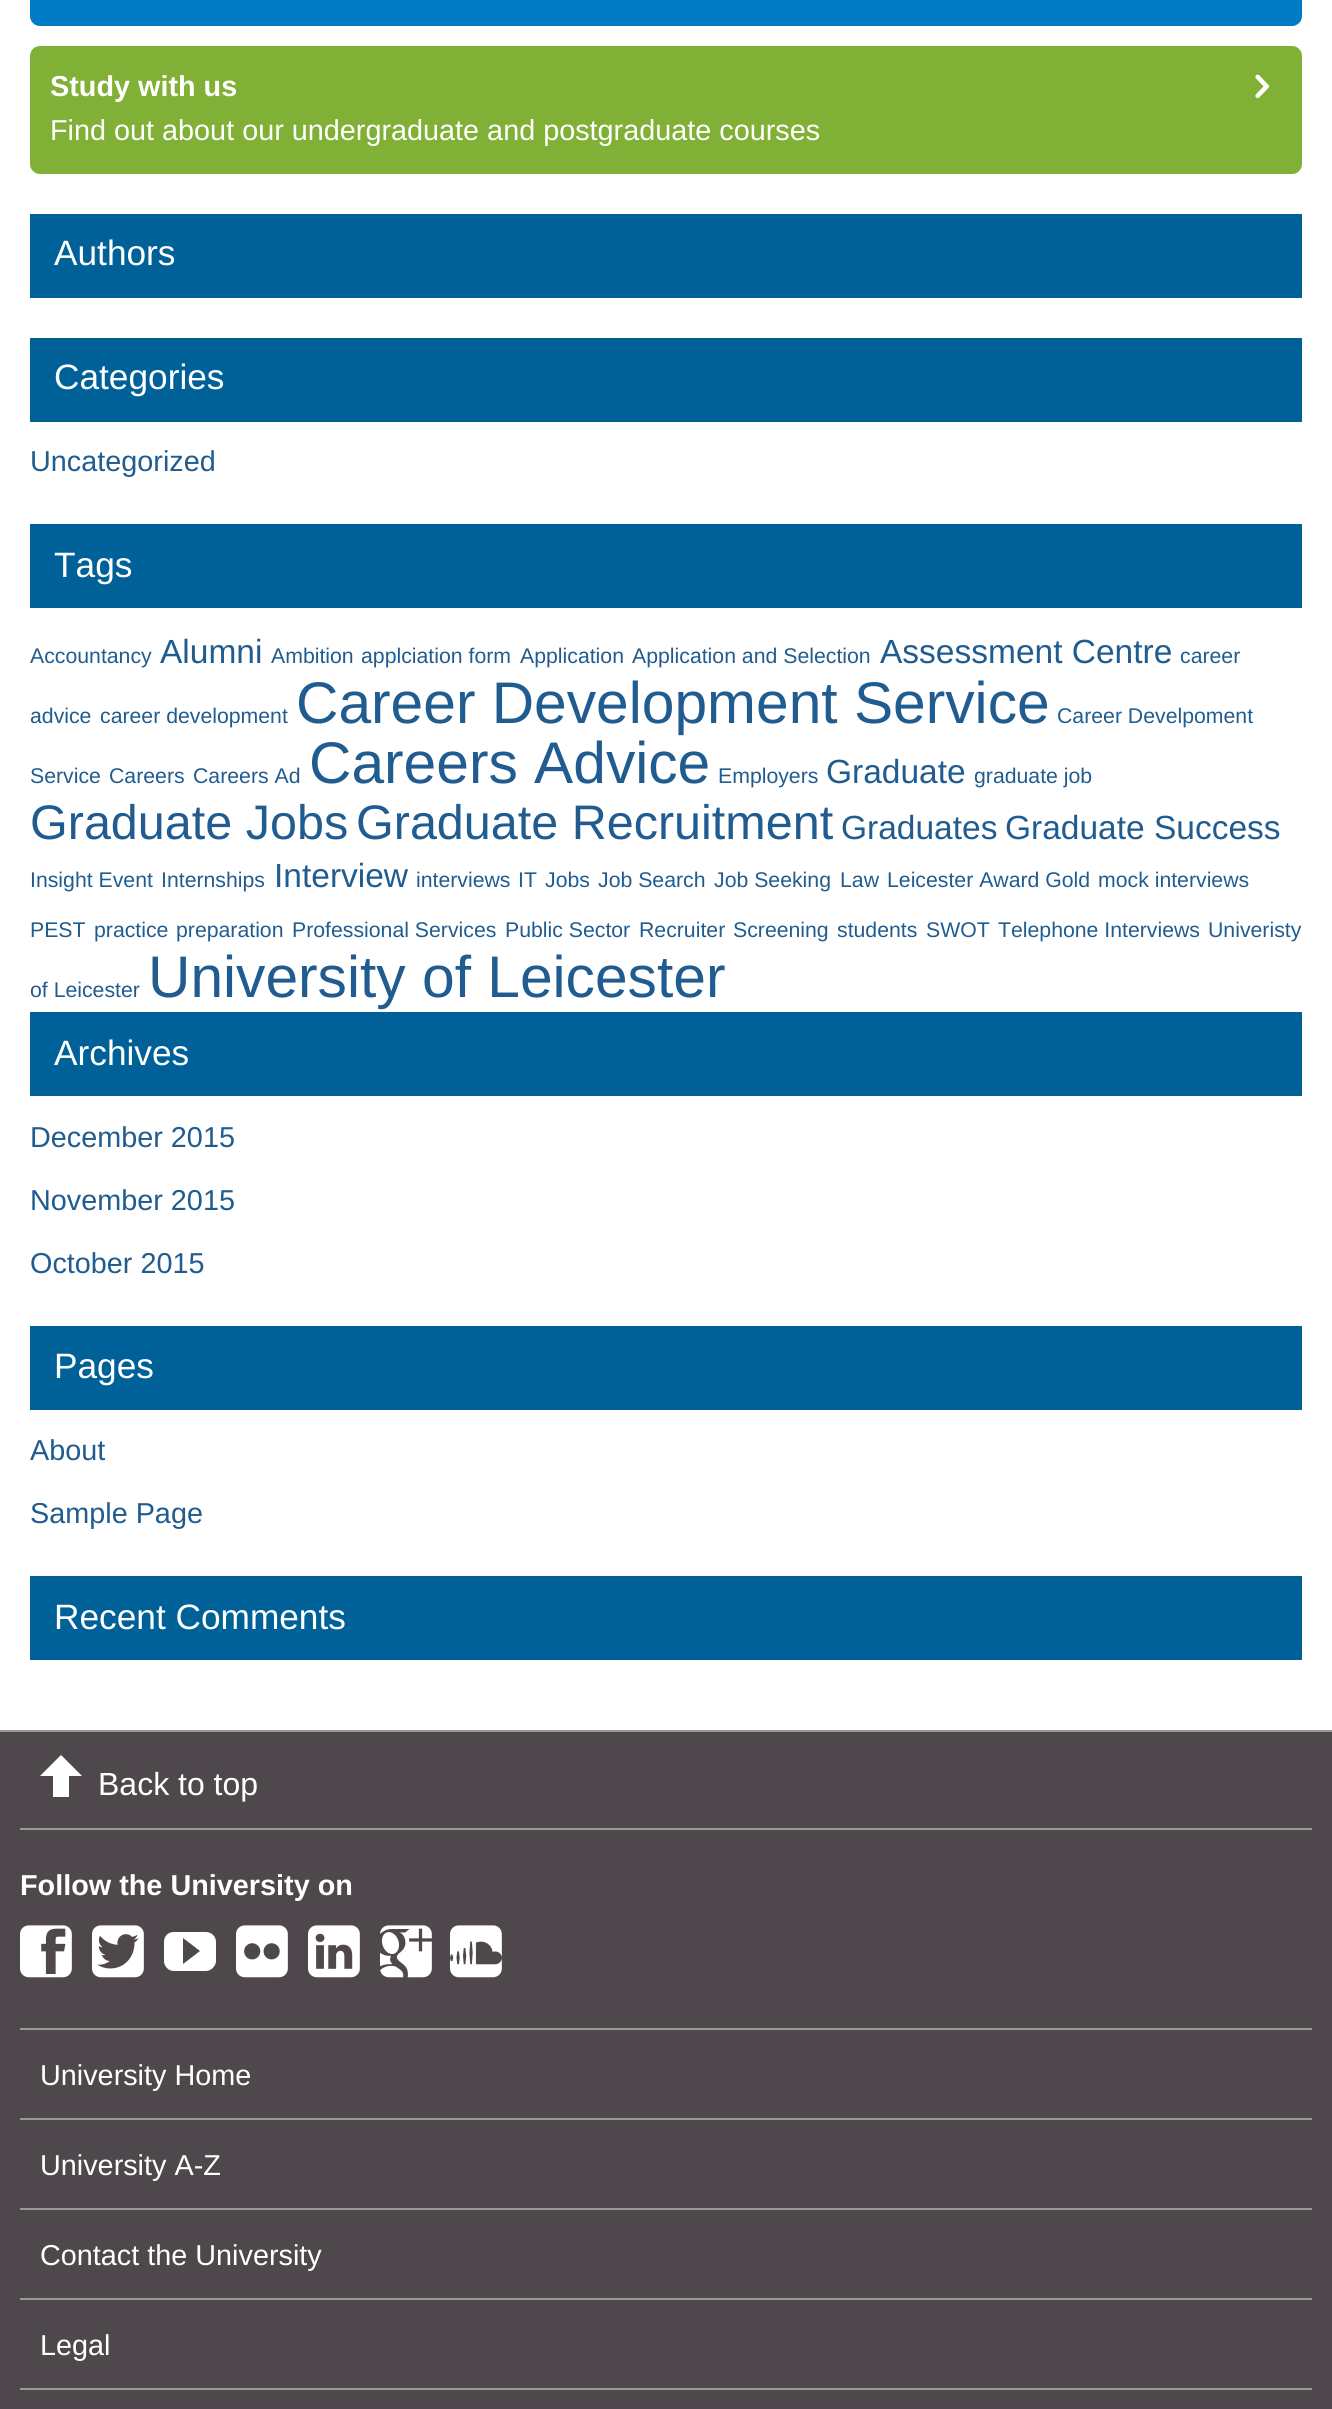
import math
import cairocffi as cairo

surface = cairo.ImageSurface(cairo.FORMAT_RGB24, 1332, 2409)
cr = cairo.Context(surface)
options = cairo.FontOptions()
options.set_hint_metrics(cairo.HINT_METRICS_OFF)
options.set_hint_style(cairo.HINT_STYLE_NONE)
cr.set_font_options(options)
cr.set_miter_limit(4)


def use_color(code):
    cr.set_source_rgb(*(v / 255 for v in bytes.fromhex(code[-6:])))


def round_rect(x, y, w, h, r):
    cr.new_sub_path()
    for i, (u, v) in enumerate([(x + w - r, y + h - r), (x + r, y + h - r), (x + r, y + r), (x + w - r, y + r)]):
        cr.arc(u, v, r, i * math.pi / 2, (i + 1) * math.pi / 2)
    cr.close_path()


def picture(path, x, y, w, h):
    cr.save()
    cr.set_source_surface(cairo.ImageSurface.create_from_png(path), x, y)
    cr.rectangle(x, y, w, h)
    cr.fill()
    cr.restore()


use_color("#ffffff")
cr.paint()
use_color("#007cc7")
round_rect(30, -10, 1272, 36, 10)
cr.fill()
use_color("#80b036")
round_rect(30, 46, 1272, 128, 10)
cr.fill()
cr.select_font_face("Liberation Sans", cairo.FONT_SLANT_NORMAL, cairo.FONT_WEIGHT_BOLD)
cr.set_font_size(28.8)
use_color("#ffffff")
cr.move_to(50, 96)
cr.show_text("Study with us")
picture("img1.png", 1255, 74, 14, 24)
cr.select_font_face("Liberation Sans")
cr.move_to(50, 140)
cr.show_text("Find out about our undergraduate and postgraduate courses")
use_color("#006199")
cr.rectangle(30, 214, 1272, 84)
cr.fill()
cr.set_font_size(35.25)
use_color("#ffffff")
cr.move_to(54, 265)
cr.show_text("Authors")
use_color("#006199")
cr.rectangle(30, 338, 1272, 84)
cr.fill()
use_color("#ffffff")
cr.move_to(54, 389)
cr.show_text("Categories")
cr.set_font_size(28.8)
use_color("#205c90")
cr.move_to(30, 471)
cr.show_text("Uncategorized")
use_color("#006199")
cr.rectangle(30, 524, 1272, 84)
cr.fill()
cr.set_font_size(35.25)
use_color("#ffffff")
cr.move_to(54, 577)
cr.show_text("Tags")
cr.set_font_size(21.25)
use_color("#205c90")
cr.move_to(30, 663)
cr.show_text("Accountancy")
cr.set_font_size(33.5)
cr.move_to(160, 663)
cr.show_text("Alumni")
cr.set_font_size(21.25)
cr.move_to(271, 663)
cr.show_text("Ambition")
cr.move_to(361, 663)
cr.show_text("applciation form")
cr.move_to(520, 663)
cr.show_text("Application")
cr.move_to(632, 663)
cr.show_text("Application and Selection")
cr.set_font_size(33.5)
cr.move_to(880, 663)
cr.show_text("Assessment Centre")
cr.set_font_size(21.25)
cr.move_to(1180, 663)
cr.show_text("career")
cr.move_to(30, 723)
cr.show_text("advice")
cr.move_to(100, 723)
cr.show_text("career development")
cr.set_font_size(58.7)
cr.move_to(296, 723)
cr.show_text("Career Development Service")
cr.set_font_size(21.25)
cr.move_to(1057, 723)
cr.show_text("Career Develpoment")
cr.move_to(30, 783)
cr.show_text("Service")
cr.move_to(109, 783)
cr.show_text("Careers")
cr.move_to(193, 783)
cr.show_text("Careers Ad")
cr.set_font_size(58.7)
cr.move_to(309, 783)
cr.show_text("Careers Advice")
cr.set_font_size(21.25)
cr.move_to(718, 783)
cr.show_text("Employers")
cr.set_font_size(33.5)
cr.move_to(826, 783)
cr.show_text("Graduate")
cr.set_font_size(21.25)
cr.move_to(974, 783)
cr.show_text("graduate job")
cr.set_font_size(48.5)
cr.move_to(30, 839)
cr.show_text("Graduate Jobs")
cr.move_to(356, 839)
cr.show_text("Graduate Recruitment")
cr.set_font_size(33.5)
cr.move_to(841, 839)
cr.show_text("Graduates")
cr.move_to(1005, 839)
cr.show_text("Graduate Success")
cr.set_font_size(21.25)
cr.move_to(30, 887)
cr.show_text("Insight Event")
cr.move_to(161, 887)
cr.show_text("Internships")
cr.set_font_size(33.5)
cr.move_to(274, 887)
cr.show_text("Interview")
cr.set_font_size(21.25)
cr.move_to(416, 887)
cr.show_text("interviews")
cr.move_to(518, 887)
cr.show_text("IT")
cr.move_to(545, 887)
cr.show_text("Jobs")
cr.move_to(598, 887)
cr.show_text("Job Search")
cr.move_to(714, 887)
cr.show_text("Job Seeking")
cr.move_to(840, 887)
cr.show_text("Law")
cr.move_to(887, 887)
cr.show_text("Leicester Award Gold")
cr.move_to(1098, 887)
cr.show_text("mock interviews")
cr.move_to(30, 937)
cr.show_text("PEST")
cr.move_to(94, 937)
cr.show_text("practice")
cr.move_to(176, 937)
cr.show_text("preparation")
cr.move_to(292, 937)
cr.show_text("Professional Services")
cr.move_to(505, 937)
cr.show_text("Public Sector")
cr.move_to(639, 937)
cr.show_text("Recruiter")
cr.move_to(733, 937)
cr.show_text("Screening")
cr.move_to(837, 937)
cr.show_text("students")
cr.move_to(926, 937)
cr.show_text("SWOT")
cr.move_to(998, 937)
cr.show_text("Telephone Interviews")
cr.move_to(1208, 937)
cr.show_text("Univeristy")
cr.move_to(30, 997)
cr.show_text("of Leicester")
cr.set_font_size(58.7)
cr.move_to(148, 997)
cr.show_text("University of Leicester")
use_color("#006199")
cr.rectangle(30, 1012, 1272, 84)
cr.fill()
cr.set_font_size(35.25)
use_color("#ffffff")
cr.move_to(54, 1065)
cr.show_text("Archives")
cr.set_font_size(28.8)
use_color("#205c90")
cr.move_to(30, 1147)
cr.show_text("December 2015")
cr.move_to(30, 1210)
cr.show_text("November 2015")
cr.move_to(30, 1273)
cr.show_text("October 2015")
use_color("#006199")
cr.rectangle(30, 1326, 1272, 84)
cr.fill()
cr.set_font_size(35.25)
use_color("#ffffff")
cr.move_to(54, 1378)
cr.show_text("Pages")
cr.set_font_size(28.8)
use_color("#205c90")
cr.move_to(30, 1460)
cr.show_text("About")
cr.move_to(30, 1523)
cr.show_text("Sample Page")
use_color("#006199")
cr.rectangle(30, 1576, 1272, 84)
cr.fill()
cr.set_font_size(35.25)
use_color("#ffffff")
cr.move_to(54, 1629)
cr.show_text("Recent Comments")
use_color("#4e484d")
cr.rectangle(0, 1732, 1332, 677)
cr.fill()
use_color("#999999")
cr.rectangle(0, 1730, 1332, 2)
cr.fill()
cr.rectangle(20, 1828, 1292, 2)
cr.fill()
use_color("#ffffff")
cr.new_path()
cr.move_to(61, 1755)
cr.line_to(82, 1776)
cr.line_to(69, 1776)
cr.line_to(69, 1797)
cr.line_to(53, 1797)
cr.line_to(53, 1776)
cr.line_to(40, 1776)
cr.close_path()
cr.fill()
cr.set_font_size(32)
cr.move_to(98, 1795)
cr.show_text("Back to top")
cr.select_font_face("Liberation Sans", cairo.FONT_SLANT_NORMAL, cairo.FONT_WEIGHT_BOLD)
cr.set_font_size(28.8)
cr.move_to(20, 1895)
cr.show_text("Follow the University on")
picture("img2.png", 20, 1925, 52, 53)
picture("img3.png", 92, 1925, 52, 53)
cr.new_path()
cr.move_to(206, 1932)
cr.curve_to(211, 1932, 216, 1936, 216, 1942)
cr.line_to(216, 1961)
cr.curve_to(216, 1966, 211, 1971, 206, 1971)
cr.line_to(174, 1971)
cr.curve_to(168, 1971, 164, 1966, 164, 1961)
cr.line_to(164, 1942)
cr.curve_to(164, 1936, 168, 1932, 174, 1932)
cr.close_path()
cr.move_to(183, 1964)
cr.line_to(200, 1951)
cr.line_to(183, 1938)
cr.close_path()
cr.fill()
picture("img4.png", 236, 1925, 52, 53)
picture("img5.png", 308, 1925, 52, 53)
picture("img6.png", 380, 1925, 52, 53)
picture("img7.png", 450, 1925, 52, 53)
use_color("#999999")
cr.rectangle(20, 2028, 1292, 2)
cr.fill()
cr.select_font_face("Liberation Sans")
use_color("#ffffff")
cr.move_to(40, 2085)
cr.show_text("University Home")
use_color("#999999")
cr.rectangle(20, 2118, 1292, 2)
cr.fill()
use_color("#ffffff")
cr.move_to(40, 2175)
cr.show_text("University A-Z")
use_color("#999999")
cr.rectangle(20, 2208, 1292, 2)
cr.fill()
use_color("#ffffff")
cr.move_to(40, 2265)
cr.show_text("Contact the University")
use_color("#999999")
cr.rectangle(20, 2298, 1292, 2)
cr.fill()
use_color("#ffffff")
cr.move_to(40, 2355)
cr.show_text("Legal")
use_color("#999999")
cr.rectangle(20, 2388, 1292, 2)
cr.fill()
surface.write_to_png("result.png")
